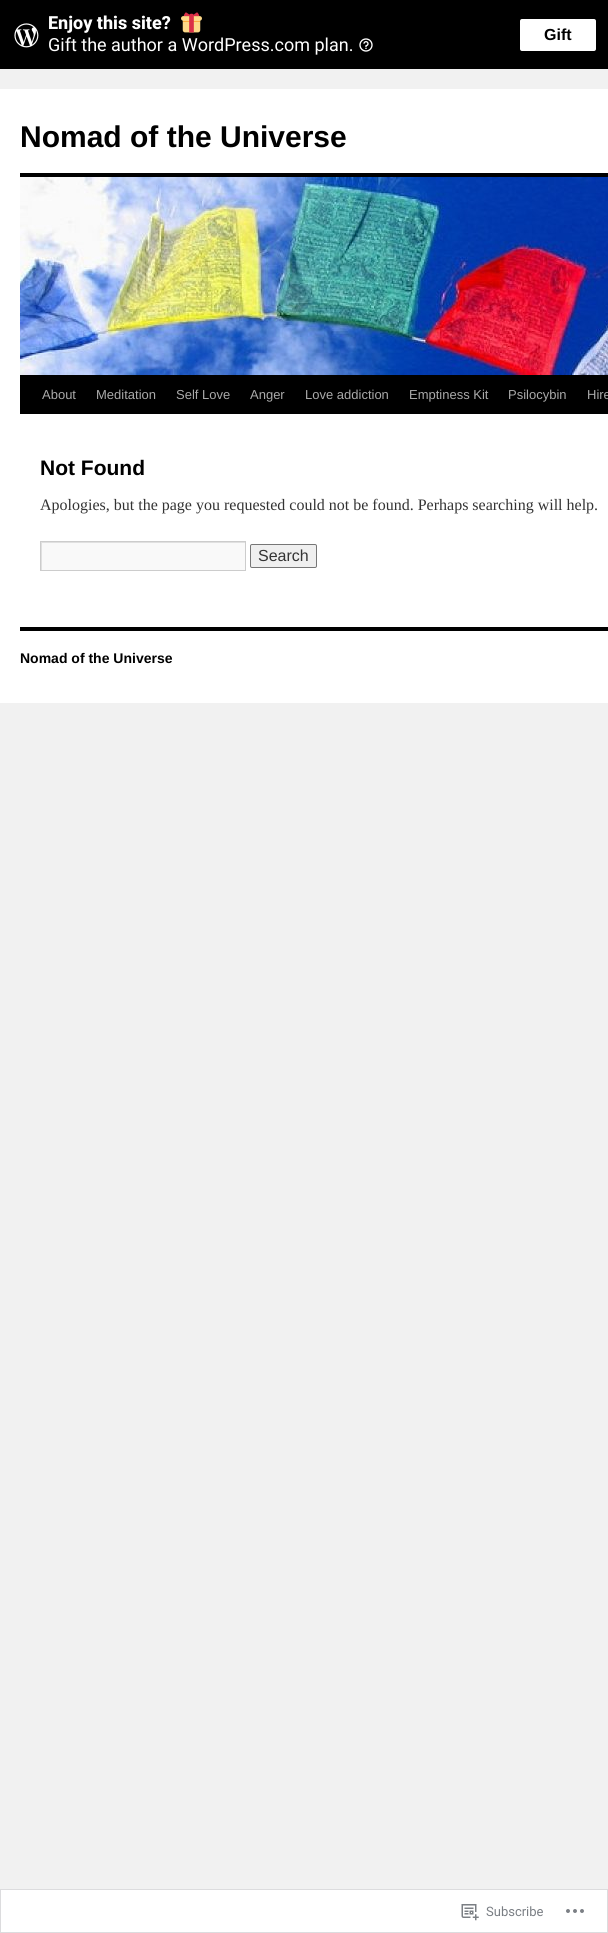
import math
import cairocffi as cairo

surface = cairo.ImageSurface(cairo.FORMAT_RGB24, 608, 1933)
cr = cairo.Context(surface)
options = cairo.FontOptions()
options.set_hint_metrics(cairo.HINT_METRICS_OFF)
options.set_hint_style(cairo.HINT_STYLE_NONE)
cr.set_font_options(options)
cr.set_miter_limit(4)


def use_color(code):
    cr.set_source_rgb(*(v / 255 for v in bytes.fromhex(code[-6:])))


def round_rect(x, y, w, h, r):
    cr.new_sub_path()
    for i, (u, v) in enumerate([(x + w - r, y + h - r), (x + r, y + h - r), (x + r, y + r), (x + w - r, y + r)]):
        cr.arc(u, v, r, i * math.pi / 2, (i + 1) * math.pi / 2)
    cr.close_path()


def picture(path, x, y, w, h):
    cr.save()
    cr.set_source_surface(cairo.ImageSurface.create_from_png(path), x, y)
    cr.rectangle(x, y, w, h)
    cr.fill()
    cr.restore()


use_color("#f1f1f1")
cr.paint()
use_color("#000000")
cr.rectangle(0, 0, 608, 69)
cr.fill()
picture("img1.png", 14, 23, 25, 25)
cr.select_font_face("Roboto ExtraBold")
cr.set_font_size(18)
use_color("#ffffff")
cr.move_to(48, 29)
cr.show_text("Enjoy this site?")
picture("img2.png", 181, 12, 21, 21)
cr.select_font_face("Roboto")
cr.move_to(48, 51)
cr.show_text("Gift the author a WordPress.com plan.")
picture("img3.png", 359, 38, 14, 14)
round_rect(520, 19, 76, 32, 2)
cr.fill()
cr.select_font_face("Liberation Sans", cairo.FONT_SLANT_NORMAL, cairo.FONT_WEIGHT_BOLD)
cr.set_font_size(16)
use_color("#000000")
cr.move_to(544, 40)
cr.show_text("Gift")
use_color("#ffffff")
cr.rectangle(0, 89, 608, 614)
cr.fill()
cr.set_font_size(30)
use_color("#000000")
cr.move_to(20, 147)
cr.show_text("Nomad of the Universe")
cr.rectangle(20, 173, 588, 4)
cr.fill()
cr.rectangle(20, 375, 588, 39)
cr.fill()
picture("img4.png", 20, 177, 588, 198)
cr.select_font_face("Liberation Sans")
cr.set_font_size(13)
use_color("#aaaaaa")
cr.move_to(42, 399)
cr.show_text("About")
cr.move_to(96, 399)
cr.show_text("Meditation")
cr.move_to(176, 399)
cr.show_text("Self Love")
cr.move_to(250, 399)
cr.show_text("Anger")
cr.move_to(305, 399)
cr.show_text("Love addiction")
cr.move_to(409, 399)
cr.show_text("Emptiness Kit")
cr.move_to(508, 399)
cr.show_text("Psilocybin")
cr.move_to(587, 399)
cr.show_text("Hire")
cr.select_font_face("Liberation Sans", cairo.FONT_SLANT_NORMAL, cairo.FONT_WEIGHT_BOLD)
cr.set_font_size(21)
use_color("#000000")
cr.move_to(40, 475)
cr.show_text("Not Found")
cr.select_font_face("Liberation Serif")
cr.set_font_size(16)
use_color("#333333")
cr.move_to(40, 510)
cr.show_text("Apologies, but the page you requested could not be found. Perhaps searching will help.")
use_color("#f9f9f9")
cr.rectangle(42, 543, 203, 27)
cr.fill()
cr.save()
cr.rectangle(41, 542, 204, 28)
cr.clip()
use_color("#e0e0e0")
cr.set_fill_rule(cairo.FILL_RULE_EVEN_ODD)
cr.new_path()
cr.move_to(-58, 443)
cr.line_to(344, 443)
cr.line_to(344, 669)
cr.line_to(-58, 669)
cr.close_path()
cr.move_to(42, 543)
cr.line_to(246, 543)
cr.line_to(246, 571)
cr.line_to(42, 571)
cr.close_path()
cr.fill()
cr.restore()
cr.rectangle(40.5, 541.5, 205, 29)
use_color("#cccccc")
cr.set_line_width(1)
cr.stroke()
use_color("#efefef")
round_rect(250.5, 544.5, 66, 23, 1.5)
cr.fill_preserve()
use_color("#767676")
cr.stroke()
cr.select_font_face("Liberation Sans")
use_color("#333333")
cr.move_to(258, 561)
cr.show_text("Search")
use_color("#000000")
cr.rectangle(20, 627, 588, 4)
cr.fill()
cr.select_font_face("Liberation Sans", cairo.FONT_SLANT_NORMAL, cairo.FONT_WEIGHT_BOLD)
cr.set_font_size(14)
cr.move_to(20, 663)
cr.show_text("Nomad of the Universe")
use_color("#ffffff")
cr.rectangle(0.5, 1889.5, 607, 43)
cr.fill_preserve()
use_color("#dcdcde")
cr.stroke()
picture("img5.png", 461, 1904, 18, 17)
cr.select_font_face("Roboto")
cr.set_font_size(13)
use_color("#7a7e84")
cr.move_to(486, 1916)
cr.show_text("Subscribe")
picture("img6.png", 566, 1909, 18, 4)
surface.write_to_png("result.png")
